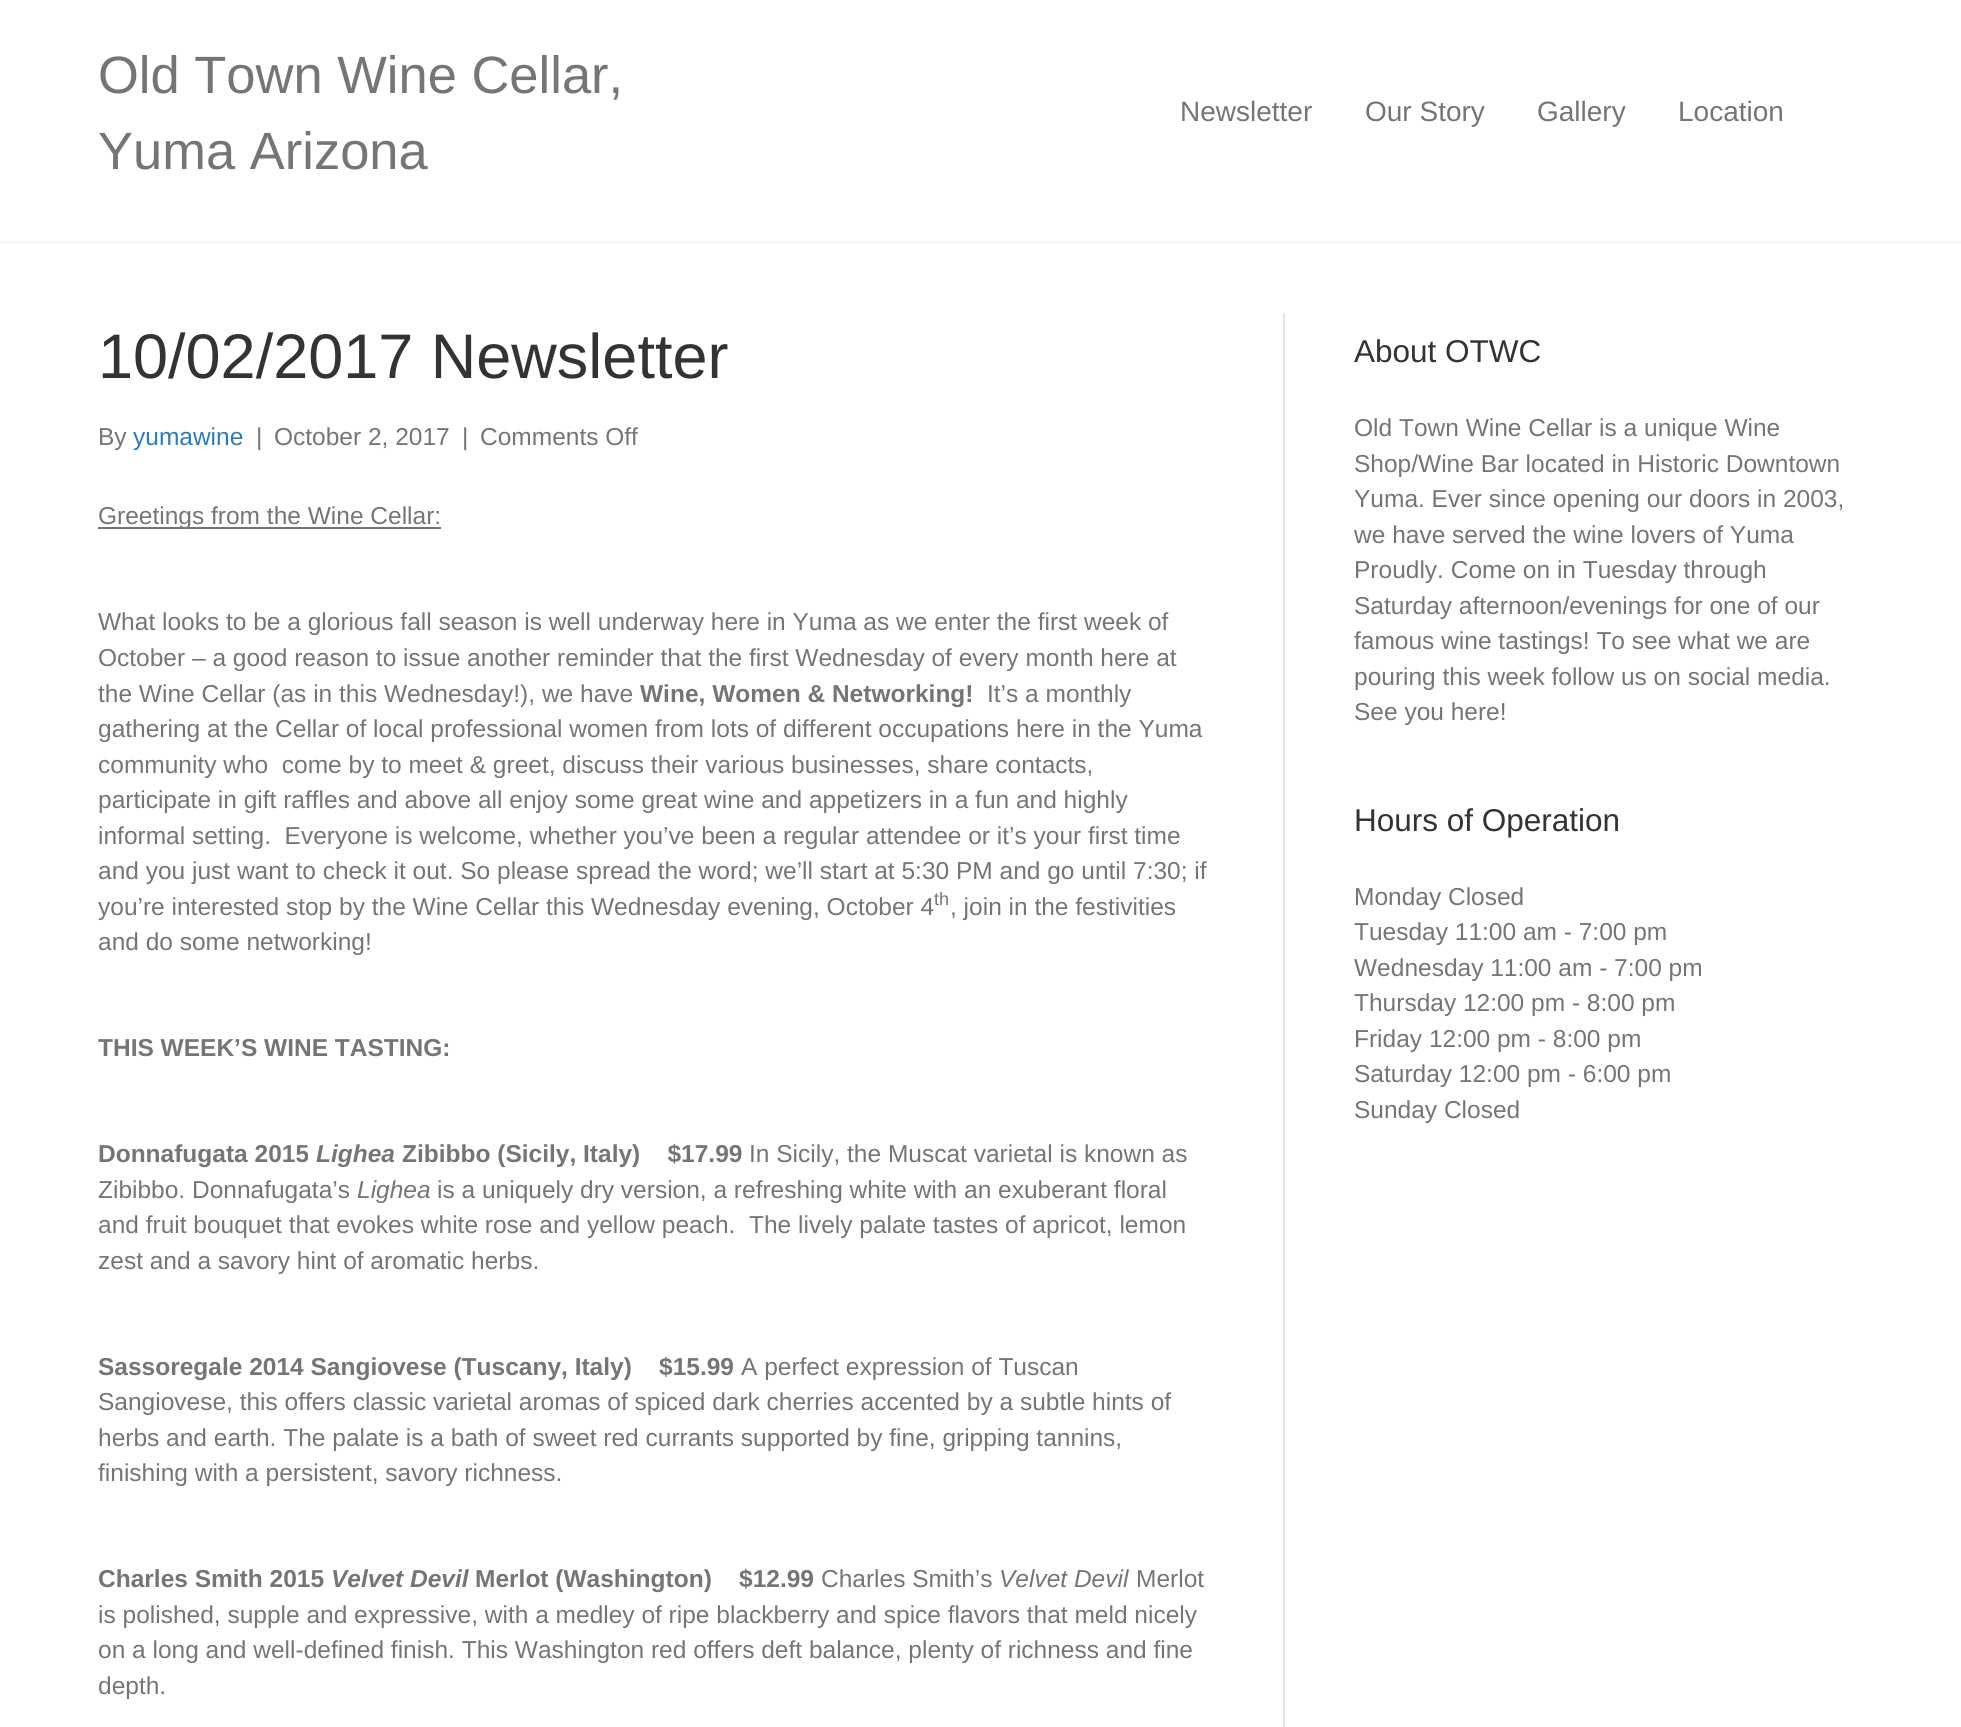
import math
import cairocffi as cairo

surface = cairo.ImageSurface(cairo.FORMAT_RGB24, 1961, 1727)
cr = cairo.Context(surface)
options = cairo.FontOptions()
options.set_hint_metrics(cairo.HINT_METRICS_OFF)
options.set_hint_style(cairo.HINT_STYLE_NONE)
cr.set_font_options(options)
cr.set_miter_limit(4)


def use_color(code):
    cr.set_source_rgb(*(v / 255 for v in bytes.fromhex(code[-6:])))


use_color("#ffffff")
cr.paint()
use_color("#ededed")
cr.rectangle(0, 242, 1961, 1)
cr.fill()
cr.select_font_face("Liberation Sans")
cr.set_font_size(52.5)
use_color("#757575")
cr.move_to(98, 93)
cr.show_text("Old Town Wine Cellar,")
cr.move_to(98, 169)
cr.show_text("Yuma Arizona")
cr.set_font_size(28)
cr.move_to(1180, 121)
cr.show_text("Newsletter")
cr.move_to(1365, 121)
cr.show_text("Our Story")
cr.move_to(1537, 121)
cr.show_text("Gallery")
cr.move_to(1678, 121)
cr.show_text("Location")
use_color("#e6e6e6")
cr.rectangle(1283, 313, 2, 1414)
cr.fill()
cr.set_font_size(63)
use_color("#333333")
cr.move_to(98, 378)
cr.show_text("10/02/2017 Newsletter")
cr.set_font_size(24.5)
use_color("#757575")
cr.move_to(98, 445)
cr.show_text("By")
use_color("#2b7bb9")
cr.move_to(133, 445)
cr.show_text("yumawine")
use_color("#757575")
cr.move_to(256, 445)
cr.show_text("|")
cr.move_to(274, 445)
cr.show_text("October 2, 2017")
cr.move_to(462, 445)
cr.show_text("|")
cr.move_to(480, 445)
cr.show_text("Comments Off")
cr.rectangle(98, 527, 343, 2)
cr.fill()
cr.move_to(98, 524)
cr.show_text("Greetings from the Wine Cellar:")
cr.move_to(98, 630)
cr.show_text("What looks to be a glorious fall season is well underway here in Yuma as we enter the first week of")
cr.move_to(98, 666)
cr.show_text("October – a good reason to issue another reminder that the first Wednesday of every month here at")
cr.move_to(98, 702)
cr.show_text("the Wine Cellar (as in this Wednesday!), we have")
cr.select_font_face("Liberation Sans", cairo.FONT_SLANT_NORMAL, cairo.FONT_WEIGHT_BOLD)
cr.move_to(640, 702)
cr.show_text("Wine, Women & Networking!")
cr.select_font_face("Liberation Sans")
cr.move_to(987, 702)
cr.show_text("It’s a monthly")
cr.move_to(98, 737)
cr.show_text("gathering at the Cellar of local professional women from lots of different occupations here in the Yuma")
cr.move_to(98, 773)
cr.show_text("community who  come by to meet & greet, discuss their various businesses, share contacts,")
cr.move_to(98, 808)
cr.show_text("participate in gift raffles and above all enjoy some great wine and appetizers in a fun and highly")
cr.move_to(98, 844)
cr.show_text("informal setting.  Everyone is welcome, whether you’ve been a regular attendee or it’s your first time")
cr.move_to(98, 879)
cr.show_text("and you just want to check it out. So please spread the word; we’ll start at 5:30 PM and go until 7:30; if")
cr.move_to(98, 915)
cr.show_text("you’re interested stop by the Wine Cellar this Wednesday evening, October 4")
cr.set_font_size(18)
cr.move_to(934, 905)
cr.show_text("th")
cr.set_font_size(24.5)
cr.move_to(950, 915)
cr.show_text(", join in the festivities")
cr.move_to(98, 950)
cr.show_text("and do some networking!")
cr.select_font_face("Liberation Sans", cairo.FONT_SLANT_NORMAL, cairo.FONT_WEIGHT_BOLD)
cr.move_to(98, 1056)
cr.show_text("THIS WEEK’S WINE TASTING:")
cr.move_to(98, 1162)
cr.show_text("Donnafugata 2015")
cr.select_font_face("Liberation Sans", cairo.FONT_SLANT_ITALIC, cairo.FONT_WEIGHT_BOLD)
cr.move_to(316, 1162)
cr.show_text("Lighea")
cr.select_font_face("Liberation Sans", cairo.FONT_SLANT_NORMAL, cairo.FONT_WEIGHT_BOLD)
cr.move_to(402, 1162)
cr.show_text("Zibibbo (Sicily, Italy)    $17.99")
cr.select_font_face("Liberation Sans")
cr.move_to(749, 1162)
cr.show_text("In Sicily, the Muscat varietal is known as")
cr.move_to(98, 1198)
cr.show_text("Zibibbo. Donnafugata’s")
cr.select_font_face("Liberation Sans", cairo.FONT_SLANT_ITALIC)
cr.move_to(357, 1198)
cr.show_text("Lighea")
cr.select_font_face("Liberation Sans")
cr.move_to(437, 1198)
cr.show_text("is a uniquely dry version, a refreshing white with an exuberant floral")
cr.move_to(98, 1233)
cr.show_text("and fruit bouquet that evokes white rose and yellow peach.  The lively palate tastes of apricot, lemon")
cr.move_to(98, 1269)
cr.show_text("zest and a savory hint of aromatic herbs.")
cr.select_font_face("Liberation Sans", cairo.FONT_SLANT_NORMAL, cairo.FONT_WEIGHT_BOLD)
cr.move_to(98, 1375)
cr.show_text("Sassoregale 2014 Sangiovese (Tuscany, Italy)    $15.99")
cr.select_font_face("Liberation Sans")
cr.move_to(741, 1375)
cr.show_text("A perfect expression of Tuscan")
cr.move_to(98, 1410)
cr.show_text("Sangiovese, this offers classic varietal aromas of spiced dark cherries accented by a subtle hints of")
cr.move_to(98, 1446)
cr.show_text("herbs and earth. The palate is a bath of sweet red currants supported by fine, gripping tannins,")
cr.move_to(98, 1481)
cr.show_text("finishing with a persistent, savory richness.")
cr.select_font_face("Liberation Sans", cairo.FONT_SLANT_NORMAL, cairo.FONT_WEIGHT_BOLD)
cr.move_to(98, 1587)
cr.show_text("Charles Smith 2015")
cr.select_font_face("Liberation Sans", cairo.FONT_SLANT_ITALIC, cairo.FONT_WEIGHT_BOLD)
cr.move_to(331, 1587)
cr.show_text("Velvet Devil")
cr.select_font_face("Liberation Sans", cairo.FONT_SLANT_NORMAL, cairo.FONT_WEIGHT_BOLD)
cr.move_to(475, 1587)
cr.show_text("Merlot (Washington)    $12.99")
cr.select_font_face("Liberation Sans")
cr.move_to(821, 1587)
cr.show_text("Charles Smith’s")
cr.select_font_face("Liberation Sans", cairo.FONT_SLANT_ITALIC)
cr.move_to(999, 1587)
cr.show_text("Velvet Devil")
cr.select_font_face("Liberation Sans")
cr.move_to(1136, 1587)
cr.show_text("Merlot")
cr.move_to(98, 1623)
cr.show_text("is polished, supple and expressive, with a medley of ripe blackberry and spice flavors that meld nicely")
cr.move_to(98, 1658)
cr.show_text("on a long and well-defined finish. This Washington red offers deft balance, plenty of richness and fine")
cr.move_to(98, 1694)
cr.show_text("depth.")
cr.set_font_size(31.5)
use_color("#333333")
cr.move_to(1354, 362)
cr.show_text("About OTWC")
cr.set_font_size(24.5)
use_color("#757575")
cr.move_to(1354, 436)
cr.show_text("Old Town Wine Cellar is a unique Wine")
cr.move_to(1354, 472)
cr.show_text("Shop/Wine Bar located in Historic Downtown")
cr.move_to(1354, 507)
cr.show_text("Yuma. Ever since opening our doors in 2003,")
cr.move_to(1354, 543)
cr.show_text("we have served the wine lovers of Yuma")
cr.move_to(1354, 578)
cr.show_text("Proudly. Come on in Tuesday through")
cr.move_to(1354, 614)
cr.show_text("Saturday afternoon/evenings for one of our")
cr.move_to(1354, 649)
cr.show_text("famous wine tastings! To see what we are")
cr.move_to(1354, 685)
cr.show_text("pouring this week follow us on social media.")
cr.move_to(1354, 720)
cr.show_text("See you here!")
cr.set_font_size(31.5)
use_color("#333333")
cr.move_to(1354, 831)
cr.show_text("Hours of Operation")
cr.set_font_size(24.5)
use_color("#757575")
cr.move_to(1354, 905)
cr.show_text("Monday Closed")
cr.move_to(1354, 940)
cr.show_text("Tuesday 11:00 am - 7:00 pm")
cr.move_to(1354, 976)
cr.show_text("Wednesday 11:00 am - 7:00 pm")
cr.move_to(1354, 1011)
cr.show_text("Thursday 12:00 pm - 8:00 pm")
cr.move_to(1354, 1047)
cr.show_text("Friday 12:00 pm - 8:00 pm")
cr.move_to(1354, 1082)
cr.show_text("Saturday 12:00 pm - 6:00 pm")
cr.move_to(1354, 1118)
cr.show_text("Sunday Closed")
surface.write_to_png("result.png")
